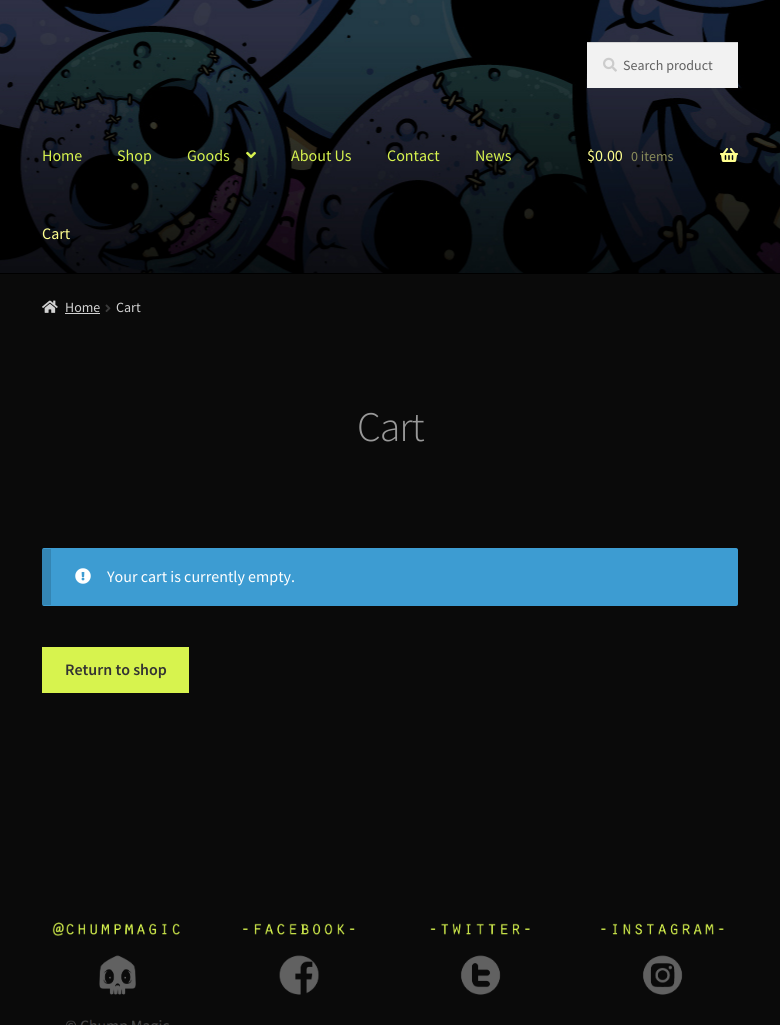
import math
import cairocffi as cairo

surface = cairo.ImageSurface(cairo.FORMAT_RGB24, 780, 1025)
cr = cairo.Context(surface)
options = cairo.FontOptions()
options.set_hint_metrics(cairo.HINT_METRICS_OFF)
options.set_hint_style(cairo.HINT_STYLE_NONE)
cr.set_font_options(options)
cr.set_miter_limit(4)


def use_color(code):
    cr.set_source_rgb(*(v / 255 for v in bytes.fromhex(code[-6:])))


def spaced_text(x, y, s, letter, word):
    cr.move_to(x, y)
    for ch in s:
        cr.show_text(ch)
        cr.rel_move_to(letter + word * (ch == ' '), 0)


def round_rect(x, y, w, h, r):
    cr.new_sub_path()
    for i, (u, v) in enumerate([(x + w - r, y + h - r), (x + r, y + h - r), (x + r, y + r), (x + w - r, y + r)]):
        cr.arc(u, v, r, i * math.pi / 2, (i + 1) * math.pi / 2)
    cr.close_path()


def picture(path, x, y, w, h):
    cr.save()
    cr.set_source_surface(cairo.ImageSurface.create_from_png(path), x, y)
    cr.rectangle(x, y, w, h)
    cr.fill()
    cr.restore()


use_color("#0a0a0a")
cr.paint()
picture("img1.png", 0, 0, 780, 273)
use_color("#000000")
cr.rectangle(0, 273, 780, 1)
cr.fill()
use_color("#f2f2f2")
cr.rectangle(587, 43, 151, 45)
cr.fill()
picture("img2.png", 603, 57, 14, 15)
use_color("#d4d4d4")
cr.rectangle(587, 42, 151, 1)
cr.fill()
cr.select_font_face("Source Sans Pro")
cr.set_font_size(14)
use_color("#616161")
cr.move_to(623, 70)
cr.show_text("Search product")
cr.set_font_size(16)
use_color("#d7f34e")
cr.move_to(42, 161)
cr.show_text("Home")
cr.move_to(117, 161)
cr.show_text("Shop")
cr.move_to(187, 161)
cr.show_text("Goods")
picture("img3.png", 246, 151, 10, 8)
cr.move_to(291, 161)
cr.show_text("About Us")
cr.move_to(387, 161)
cr.show_text("Contact")
cr.move_to(475, 161)
cr.show_text("News")
use_color("#ffff8f")
cr.move_to(42, 239)
cr.show_text("Cart")
cr.move_to(587, 161)
cr.show_text("$0.00")
cr.set_font_size(14)
use_color("#8a8c5a")
cr.move_to(631, 161)
cr.show_text("0 items")
picture("img4.png", 720, 148, 18, 14)
picture("img5.png", 42, 300, 16, 13)
use_color("#d1d1d1")
cr.move_to(65, 312)
cr.show_text("Home")
cr.rectangle(65, 313, 35, 1)
cr.fill()
picture("img6.png", 105, 304, 6, 8)
cr.move_to(116, 312)
cr.show_text("Cart")
cr.select_font_face("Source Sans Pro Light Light")
cr.set_font_size(42)
use_color("#999999")
spaced_text(357, 441, "Cart", -1, 0)
use_color("#3d9cd2")
round_rect(42, 548, 696, 58, 2)
cr.fill()
cr.set_source_rgba(0, 0, 0, 0.15)
cr.rectangle(42, 549, 9, 56)
cr.fill()
picture("img7.png", 75, 568, 16, 16)
cr.select_font_face("Source Sans Pro")
cr.set_font_size(16)
use_color("#ffffff")
cr.move_to(107, 582)
cr.show_text("Your cart is currently empty.")
use_color("#d7f34e")
cr.rectangle(42, 647, 147, 46)
cr.fill()
cr.select_font_face("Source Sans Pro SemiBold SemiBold")
use_color("#333333")
cr.move_to(65, 675)
cr.show_text("Return to shop")
picture("img8.png", 52, 922, 128, 73)
picture("img9.png", 65, 1019, 104, 6)
picture("img10.png", 243, 923, 112, 72)
picture("img11.png", 430, 923, 100, 72)
picture("img12.png", 601, 923, 123, 72)
surface.write_to_png("result.png")
